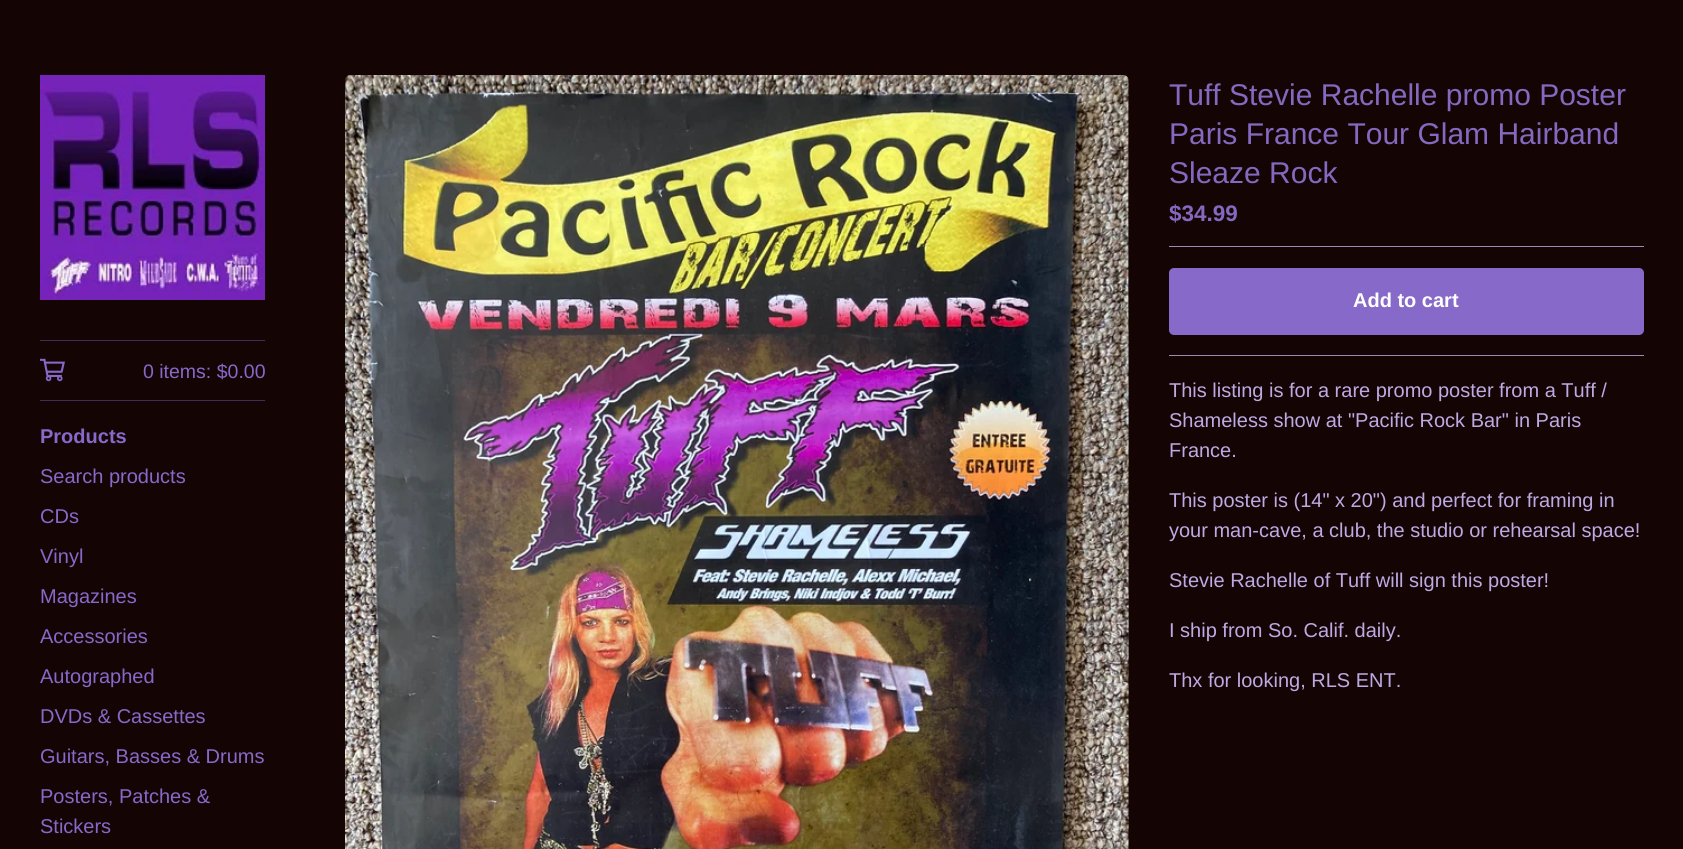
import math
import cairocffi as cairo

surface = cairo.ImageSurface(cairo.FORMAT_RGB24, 1683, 849)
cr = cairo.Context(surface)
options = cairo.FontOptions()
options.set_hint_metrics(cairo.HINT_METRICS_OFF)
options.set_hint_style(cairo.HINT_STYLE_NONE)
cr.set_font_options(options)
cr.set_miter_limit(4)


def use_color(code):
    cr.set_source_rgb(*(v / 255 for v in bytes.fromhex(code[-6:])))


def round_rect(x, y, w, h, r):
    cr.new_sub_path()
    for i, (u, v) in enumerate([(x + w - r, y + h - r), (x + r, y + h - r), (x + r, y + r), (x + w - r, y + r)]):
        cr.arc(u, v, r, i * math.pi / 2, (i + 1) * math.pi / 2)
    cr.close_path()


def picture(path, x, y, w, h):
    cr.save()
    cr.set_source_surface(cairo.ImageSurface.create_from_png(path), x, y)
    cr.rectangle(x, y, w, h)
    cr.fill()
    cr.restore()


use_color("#140404")
cr.paint()
picture("img1.png", 40, 75, 225, 225)
use_color("#422c53")
cr.rectangle(40, 340, 225, 1)
cr.fill()
picture("img2.png", 40, 358, 25, 24)
cr.select_font_face("Liberation Sans")
cr.set_font_size(19.5)
use_color("#8669c9")
cr.move_to(143, 378)
cr.show_text("0 items: $0.00")
use_color("#422c53")
cr.rectangle(40, 400, 225, 1)
cr.fill()
cr.select_font_face("Liberation Sans", cairo.FONT_SLANT_NORMAL, cairo.FONT_WEIGHT_BOLD)
cr.set_font_size(20)
use_color("#8669c9")
cr.move_to(40, 443)
cr.show_text("Products")
cr.select_font_face("Liberation Sans")
cr.move_to(40, 483)
cr.show_text("Search products")
cr.move_to(40, 523)
cr.show_text("CDs")
cr.move_to(40, 563)
cr.show_text("Vinyl")
cr.move_to(40, 603)
cr.show_text("Magazines")
cr.move_to(40, 643)
cr.show_text("Accessories")
cr.move_to(40, 683)
cr.show_text("Autographed")
cr.move_to(40, 723)
cr.show_text("DVDs & Cassettes")
cr.move_to(40, 763)
cr.show_text("Guitars, Basses & Drums")
cr.move_to(40, 803)
cr.show_text("Posters, Patches &")
cr.move_to(40, 833)
cr.show_text("Stickers")
picture("img3.png", 345, 75, 784, 774)
cr.set_font_size(30)
use_color("#8369bf")
cr.move_to(1169, 105)
cr.show_text("Tuff Stevie Rachelle promo Poster")
cr.move_to(1169, 144)
cr.show_text("Paris France Tour Glam Hairband")
cr.move_to(1169, 183)
cr.show_text("Sleaze Rock")
cr.select_font_face("Liberation Sans", cairo.FONT_SLANT_NORMAL, cairo.FONT_WEIGHT_BOLD)
cr.set_font_size(22.5)
cr.move_to(1169, 221)
cr.show_text("$34.99")
use_color("#9b89b6")
cr.rectangle(1169, 246, 475, 1)
cr.fill()
cr.rectangle(1169, 355, 475, 1)
cr.fill()
use_color("#8669c9")
round_rect(1169, 268, 475, 67, 5)
cr.fill()
cr.set_font_size(20)
use_color("#ffffff")
cr.move_to(1353, 307)
cr.show_text("Add to cart")
cr.select_font_face("Liberation Sans")
use_color("#bdaae3")
cr.move_to(1169, 397)
cr.show_text("This listing is for a rare promo poster from a Tuff /")
cr.move_to(1169, 427)
cr.show_text("Shameless show at \"Pacific Rock Bar\" in Paris")
cr.move_to(1169, 457)
cr.show_text("France.")
cr.move_to(1169, 507)
cr.show_text("This poster is (14\" x 20\") and perfect for framing in")
cr.move_to(1169, 537)
cr.show_text("your man-cave, a club, the studio or rehearsal space!")
cr.move_to(1169, 587)
cr.show_text("Stevie Rachelle of Tuff will sign this poster!")
cr.move_to(1169, 637)
cr.show_text("I ship from So. Calif. daily.")
cr.move_to(1169, 687)
cr.show_text("Thx for looking, RLS ENT.")
surface.write_to_png("result.png")
